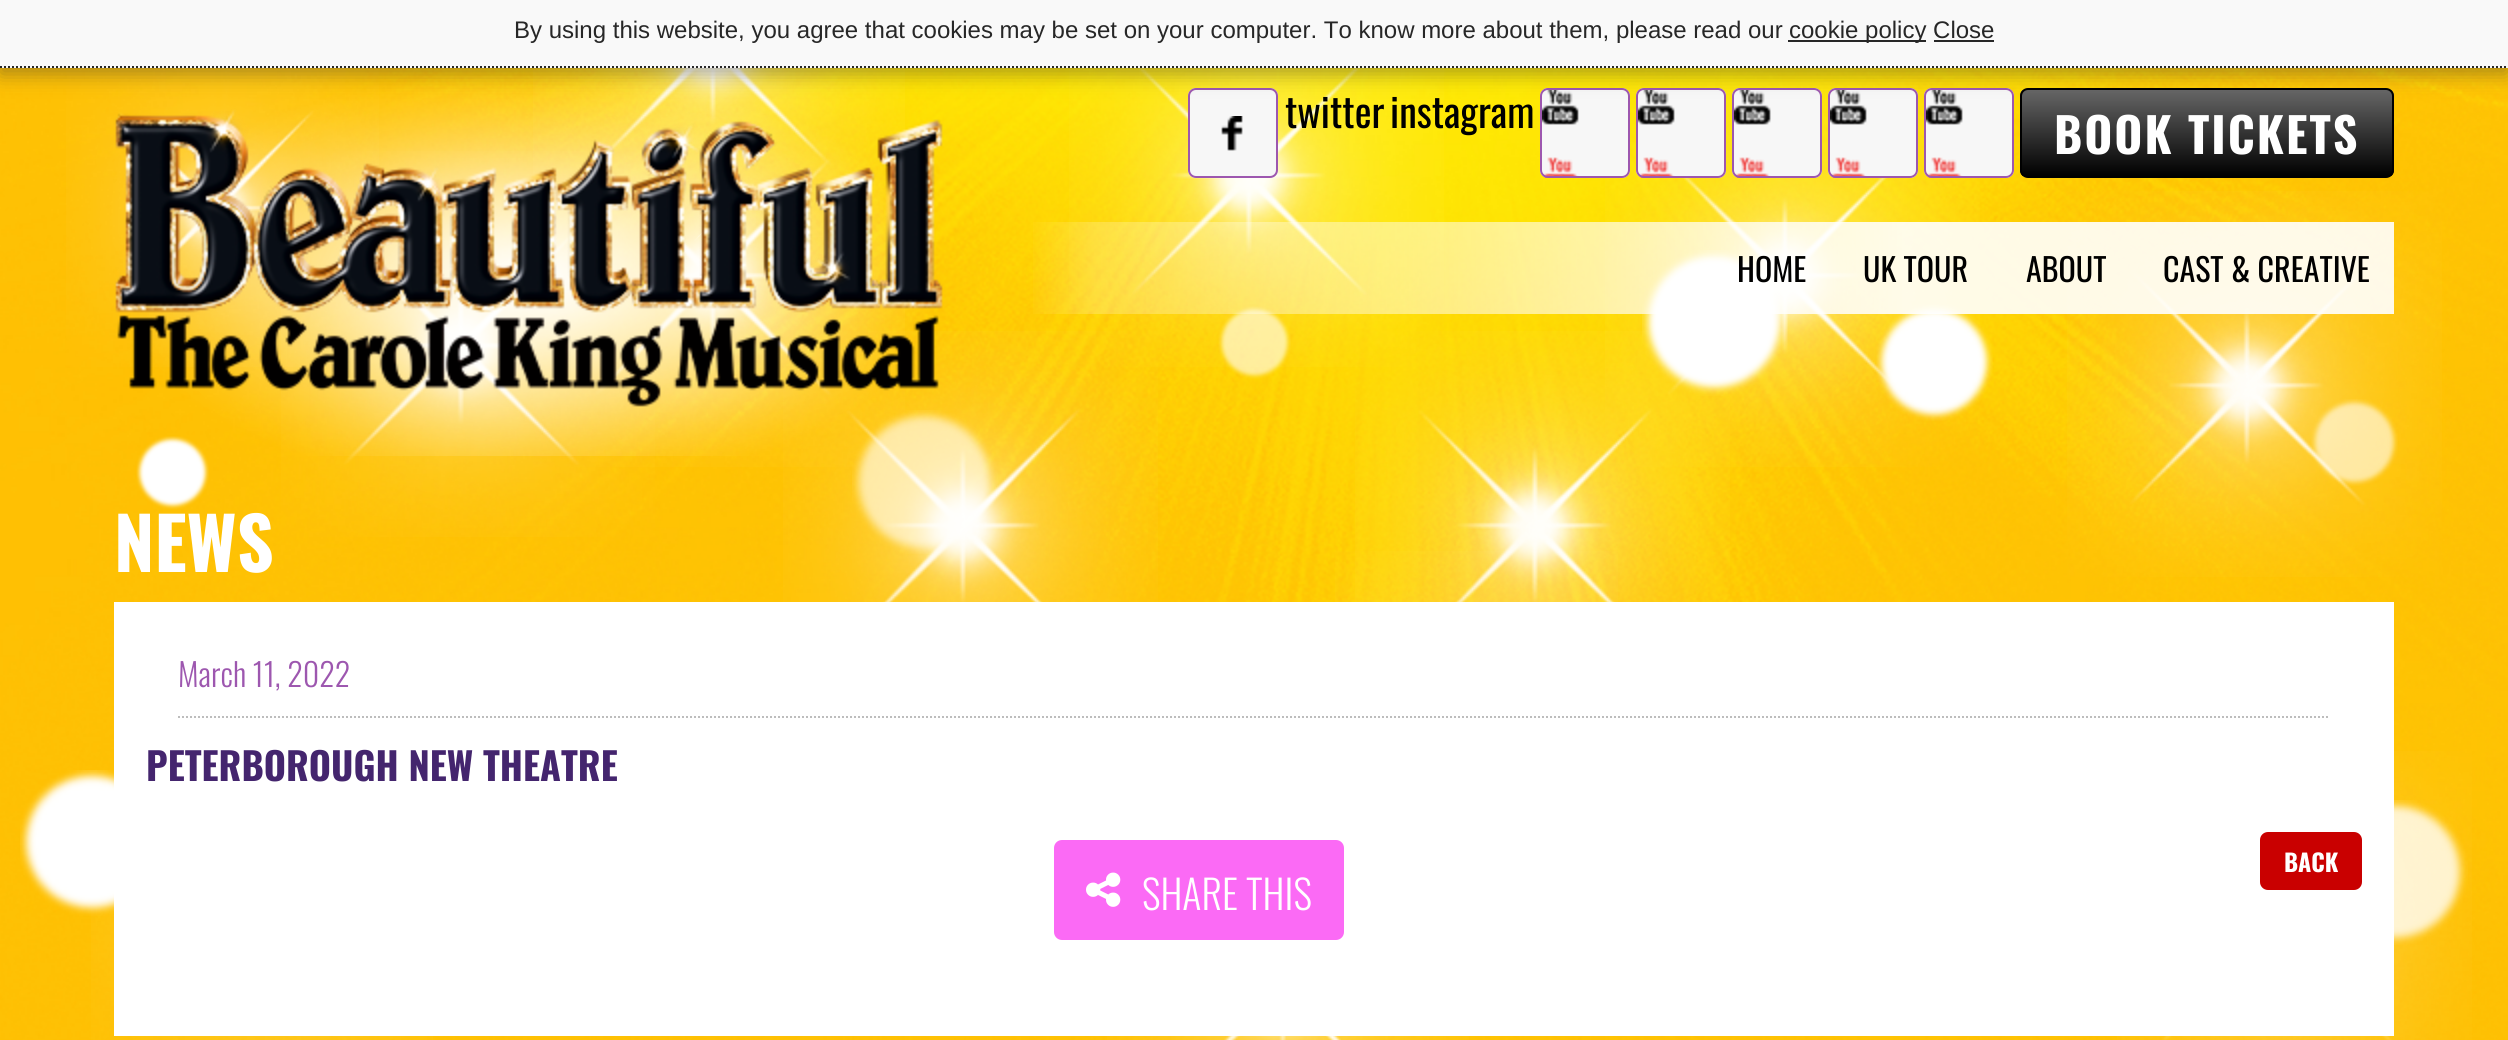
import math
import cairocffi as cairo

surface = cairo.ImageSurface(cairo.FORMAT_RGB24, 2508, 1040)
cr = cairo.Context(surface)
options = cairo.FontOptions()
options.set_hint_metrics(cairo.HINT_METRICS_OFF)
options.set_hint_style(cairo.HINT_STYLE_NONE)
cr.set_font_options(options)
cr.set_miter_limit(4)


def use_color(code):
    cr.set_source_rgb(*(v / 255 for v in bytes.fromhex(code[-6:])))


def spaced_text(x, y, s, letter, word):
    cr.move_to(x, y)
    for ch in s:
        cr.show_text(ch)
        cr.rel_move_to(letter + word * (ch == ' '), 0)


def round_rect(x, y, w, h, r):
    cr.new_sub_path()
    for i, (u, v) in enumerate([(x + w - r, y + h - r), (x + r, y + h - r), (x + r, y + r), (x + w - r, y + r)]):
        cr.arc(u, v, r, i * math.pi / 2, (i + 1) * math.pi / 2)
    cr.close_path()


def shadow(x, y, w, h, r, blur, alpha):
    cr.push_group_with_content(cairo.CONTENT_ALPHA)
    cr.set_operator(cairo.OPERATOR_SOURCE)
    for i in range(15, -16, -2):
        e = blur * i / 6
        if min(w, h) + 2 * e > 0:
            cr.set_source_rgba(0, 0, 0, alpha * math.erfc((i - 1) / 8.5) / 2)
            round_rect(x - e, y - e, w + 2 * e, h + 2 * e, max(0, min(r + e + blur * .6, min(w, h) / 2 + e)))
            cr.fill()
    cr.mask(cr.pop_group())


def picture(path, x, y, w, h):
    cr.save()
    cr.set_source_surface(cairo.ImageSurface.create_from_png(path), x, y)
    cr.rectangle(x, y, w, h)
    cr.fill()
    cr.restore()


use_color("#ffffff")
cr.paint()
picture("img1.png", 0, 68, 2508, 972)
picture("img2.png", 66, 68, 313, 299)
picture("img3.png", 533, 68, 372, 169)
picture("img4.png", 1069, 68, 375, 299)
picture("img5.png", 281, 151, 374, 386)
picture("img8.png", 683, 182, 73, 72)
picture("img9.png", 783, 331, 375, 271)
picture("img6.png", 533, 81, 372, 386)
picture("img12.png", 1335, 551, 283, 51)
picture("img10.png", 1355, 331, 375, 271)
picture("img7.png", 1605, 81, 375, 386)
picture("img27.png", 136, 436, 73, 73)
picture("img28.png", 852, 410, 146, 144)
picture("img16.png", 115, 76, 828, 380)
use_color("#f7f7f7")
round_rect(1188, 88, 90, 90, 8)
cr.fill()
picture("img17.png", 1221, 116, 22, 35)
round_rect(1189, 89, 88, 88, 7)
use_color("#9d57af")
cr.stroke()
use_color("#f7f7f7")
round_rect(1540, 88, 90, 90, 8)
cr.fill()
picture("img18.png", 1542, 90, 37, 88)
round_rect(1541, 89, 88, 88, 7)
use_color("#9d57af")
cr.stroke()
use_color("#f7f7f7")
round_rect(1636, 88, 90, 90, 8)
cr.fill()
picture("img19.png", 1638, 90, 37, 88)
round_rect(1637, 89, 88, 88, 7)
use_color("#9d57af")
cr.stroke()
use_color("#f7f7f7")
round_rect(1732, 88, 90, 90, 8)
cr.fill()
picture("img20.png", 1734, 90, 37, 88)
round_rect(1733, 89, 88, 88, 7)
use_color("#9d57af")
cr.stroke()
use_color("#f7f7f7")
round_rect(1828, 88, 90, 90, 8)
cr.fill()
picture("img21.png", 1830, 90, 37, 88)
round_rect(1829, 89, 88, 88, 7)
use_color("#9d57af")
cr.stroke()
use_color("#f7f7f7")
round_rect(1924, 88, 90, 90, 8)
cr.fill()
picture("img22.png", 1926, 90, 37, 88)
round_rect(1925, 89, 88, 88, 7)
use_color("#9d57af")
cr.stroke()
cr.save()
round_rect(2020, 88, 374, 90, 8)
cr.clip()
gradient = cairo.LinearGradient(2207, 90, 2207, 176)
gradient.add_color_stop_rgba(0, 0.4, 0.4, 0.4, 1)
gradient.add_color_stop_rgba(1, 0, 0, 0, 1)
cr.set_source(gradient)
cr.rectangle(2020, 90, 374, 86)
cr.fill()
cr.restore()
round_rect(2021, 89, 372, 88, 7)
use_color("#000000")
cr.stroke()
use_color("#323232")
shadow(0, 6, 2508, 68, 0, 10, 0.43)
use_color("#f9f9f9")
cr.rectangle(0, 0, 2508, 68)
cr.fill()
cr.new_path()
cr.move_to(0, 67)
cr.line_to(2508, 67)
use_color("#272727")
cr.set_dash([2, 2])
cr.stroke()
cr.select_font_face("Liberation Sans")
cr.set_font_size(24)
cr.move_to(514, 38)
cr.show_text("By using this website, you agree that cookies may be set on your computer. To know more about them, please read our")
cr.rectangle(1788, 40, 138, 2)
cr.fill()
cr.move_to(1789, 38)
cr.show_text("cookie policy Close")
cr.rectangle(1934, 40, 60, 2)
cr.fill()
picture("img11.png", 2067, 191, 375, 386)
picture("img13.png", 91, 893, 342, 147)
picture("img14.png", 1107, 1036, 362, 4)
picture("img15.png", 2117, 751, 355, 289)
cr.select_font_face("Oswald")
cr.set_font_size(40)
use_color("#000000")
cr.move_to(1285, 128)
cr.show_text("twitter")
cr.move_to(1390, 128)
cr.show_text("instagram")
cr.select_font_face("Oswald", cairo.FONT_SLANT_NORMAL, cairo.FONT_WEIGHT_BOLD)
cr.set_font_size(48)
use_color("#ffffff")
spaced_text(2054, 154, "BOOK TICKETS", 2, 0)
picture("img25.png", 1649, 257, 131, 131)
picture("img23.png", 1642, 250, 146, 146)
picture("img24.png", 1218, 306, 73, 73)
picture("img26.png", 1876, 304, 117, 117)
gradient = cairo.LinearGradient(1026, 268, 2394, 268)
gradient.add_color_stop_rgba(0, 1, 1, 1, 0)
gradient.add_color_stop_rgba(0.05, 1, 1, 1, 0.2)
gradient.add_color_stop_rgba(0.64, 1, 1, 1, 0.9)
cr.set_source(gradient)
cr.rectangle(1033, 222, 1361, 92)
cr.fill()
cr.select_font_face("Oswald")
cr.set_font_size(32)
use_color("#000000")
cr.move_to(1737, 282)
cr.show_text("HOME")
cr.move_to(1863, 282)
cr.show_text("UK TOUR")
cr.move_to(2026, 282)
cr.show_text("ABOUT")
cr.move_to(2163, 282)
cr.show_text("CAST & CREATIVE")
picture("img29.png", 2311, 399, 87, 87)
picture("img30.png", 20, 770, 94, 146)
picture("img31.png", 2394, 800, 74, 145)
cr.select_font_face("Oswald", cairo.FONT_SLANT_NORMAL, cairo.FONT_WEIGHT_BOLD)
cr.set_font_size(72)
use_color("#ffffff")
cr.move_to(114, 572)
cr.show_text("NEWS")
cr.rectangle(114, 602, 2280, 434)
cr.fill()
cr.new_path()
cr.move_to(178, 717)
cr.line_to(2330, 717)
use_color("#bdbdbd")
cr.stroke()
cr.select_font_face("Oswald Light")
cr.set_font_size(32)
use_color("#9d57af")
cr.move_to(178, 687)
cr.show_text("March 11, 2022")
cr.select_font_face("Oswald", cairo.FONT_SLANT_NORMAL, cairo.FONT_WEIGHT_BOLD)
cr.set_font_size(38)
use_color("#44256e")
cr.move_to(146, 781)
cr.show_text("PETERBOROUGH NEW THEATRE")
use_color("#c90000")
round_rect(2260, 832, 102, 58, 8)
cr.fill()
cr.set_font_size(24)
use_color("#ffffff")
cr.move_to(2284, 872)
cr.show_text("BACK")
use_color("#fb6af5")
round_rect(1054, 840, 290, 100, 8)
cr.fill()
picture("img32.png", 1086, 872, 35, 35)
cr.select_font_face("Oswald Light")
cr.set_font_size(40)
use_color("#ffffff")
cr.move_to(1142, 910)
cr.show_text("SHARE THIS")
surface.write_to_png("result.png")
